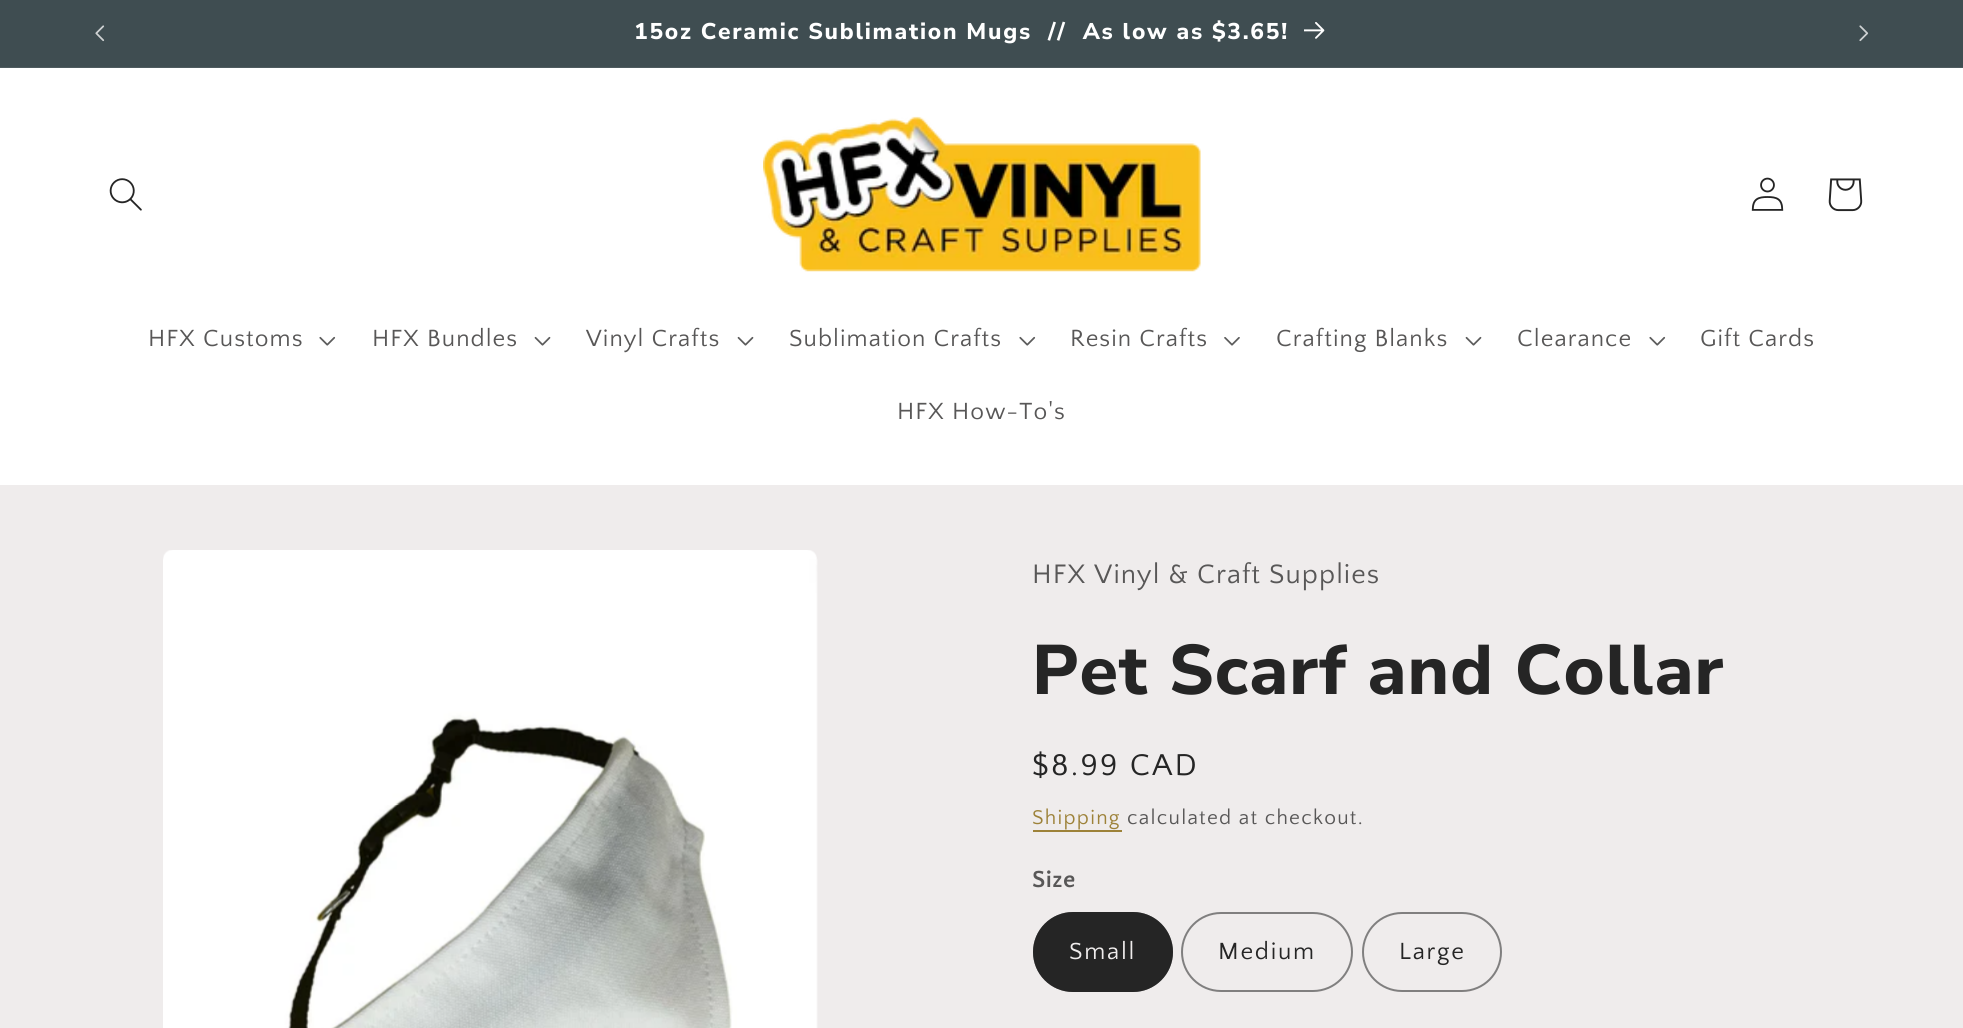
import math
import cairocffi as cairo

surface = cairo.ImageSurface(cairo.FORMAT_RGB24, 1963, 1028)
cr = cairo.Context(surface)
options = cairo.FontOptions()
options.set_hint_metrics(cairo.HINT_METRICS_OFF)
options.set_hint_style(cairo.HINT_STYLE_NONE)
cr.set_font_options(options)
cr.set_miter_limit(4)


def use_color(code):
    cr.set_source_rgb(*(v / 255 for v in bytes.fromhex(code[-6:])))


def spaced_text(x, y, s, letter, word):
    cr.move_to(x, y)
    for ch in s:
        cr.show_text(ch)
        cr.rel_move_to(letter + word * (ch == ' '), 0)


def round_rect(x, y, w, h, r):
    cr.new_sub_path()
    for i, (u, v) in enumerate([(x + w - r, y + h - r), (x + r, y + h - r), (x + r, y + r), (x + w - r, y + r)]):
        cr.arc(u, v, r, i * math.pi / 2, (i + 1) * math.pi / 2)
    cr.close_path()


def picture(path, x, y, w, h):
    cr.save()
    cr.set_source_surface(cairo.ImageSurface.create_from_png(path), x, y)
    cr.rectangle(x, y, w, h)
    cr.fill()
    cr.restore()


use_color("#efecec")
cr.paint()
use_color("#3f4d51")
cr.rectangle(0, 0, 1963, 67)
cr.fill()
use_color("#4e5b5f")
cr.rectangle(0, 67, 1963, 1)
cr.fill()
picture("img1.png", 95, 25, 10, 17)
cr.select_font_face("Nunito Sans ExtraBold")
cr.set_font_size(22.75)
use_color("#ffffff")
spaced_text(634, 39, "15oz Ceramic Sublimation Mugs  //  As low as $3.65!", 1.75, 0)
picture("img2.png", 1304, 22, 21, 17)
picture("img3.png", 1859, 25, 10, 17)
cr.rectangle(0, 68, 1963, 417)
cr.fill()
picture("img4.png", 109, 178, 33, 33)
picture("img5.png", 763, 116, 438, 156)
picture("img6.png", 1751, 177, 33, 34)
picture("img7.png", 1828, 178, 35, 34)
cr.select_font_face("Quattrocento Sans")
cr.set_font_size(24.5)
use_color("#585757")
spaced_text(148, 346, "HFX Customs", 1.05, 0)
picture("img8.png", 319, 336, 17, 10)
spaced_text(372, 346, "HFX Bundles", 1.05, 0)
picture("img9.png", 534, 336, 17, 10)
spaced_text(586, 346, "Vinyl Crafts", 1.05, 0)
picture("img9.png", 737, 336, 17, 10)
spaced_text(789, 346, "Sublimation Crafts", 1.05, 0)
picture("img8.png", 1019, 336, 17, 10)
spaced_text(1070, 346, "Resin Crafts", 1.05, 0)
picture("img10.png", 1224, 337, 16, 9)
spaced_text(1276, 346, "Crafting Blanks", 1.05, 0)
picture("img9.png", 1465, 336, 17, 10)
spaced_text(1517, 346, "Clearance", 1.05, 0)
picture("img8.png", 1649, 336, 17, 10)
spaced_text(1700, 346, "Gift Cards", 1.05, 0)
spaced_text(897, 419, "HFX How-To's", 1.05, 0)
picture("img11.png", 163, 550, 655, 478)
cr.set_font_size(28)
spaced_text(1032, 583, "HFX Vinyl & Craft Supplies", 1.05, 0)
cr.select_font_face("Nunito Sans ExtraBold")
cr.set_font_size(70)
use_color("#252525")
spaced_text(1032, 694, "Pet Scarf and Collar", 1.05, 0)
cr.select_font_face("Quattrocento Sans")
cr.set_font_size(31.5)
spaced_text(1032, 775, "$8.99 CAD", 2.25, 0)
cr.set_font_size(21)
use_color("#9d8239")
spaced_text(1032, 824, "Shipping", 1.25, 0)
cr.rectangle(1033, 830, 89, 2)
cr.fill()
use_color("#585757")
spaced_text(1127, 824, "calculated at checkout.", 1.25, 0)
cr.select_font_face("Quattrocento Sans", cairo.FONT_SLANT_NORMAL, cairo.FONT_WEIGHT_BOLD)
cr.set_font_size(24.5)
spaced_text(1032, 887, "Size", 0.5, 0)
use_color("#252525")
round_rect(1033, 912, 140, 80, 40)
cr.fill()
round_rect(1034, 913, 138, 78, 39)
cr.set_source_rgba(0.145, 0.145, 0.145, 0.55)
cr.stroke()
cr.select_font_face("Quattrocento Sans")
use_color("#efecec")
spaced_text(1069, 959, "Small", 1.75, 0)
round_rect(1182, 913, 170, 78, 39)
use_color("#807f7f")
cr.stroke()
use_color("#252525")
spaced_text(1218, 959, "Medium", 1.75, 0)
round_rect(1363, 913, 138, 78, 39)
use_color("#807f7f")
cr.stroke()
use_color("#252525")
spaced_text(1399, 959, "Large", 1.75, 0)
surface.write_to_png("result.png")
